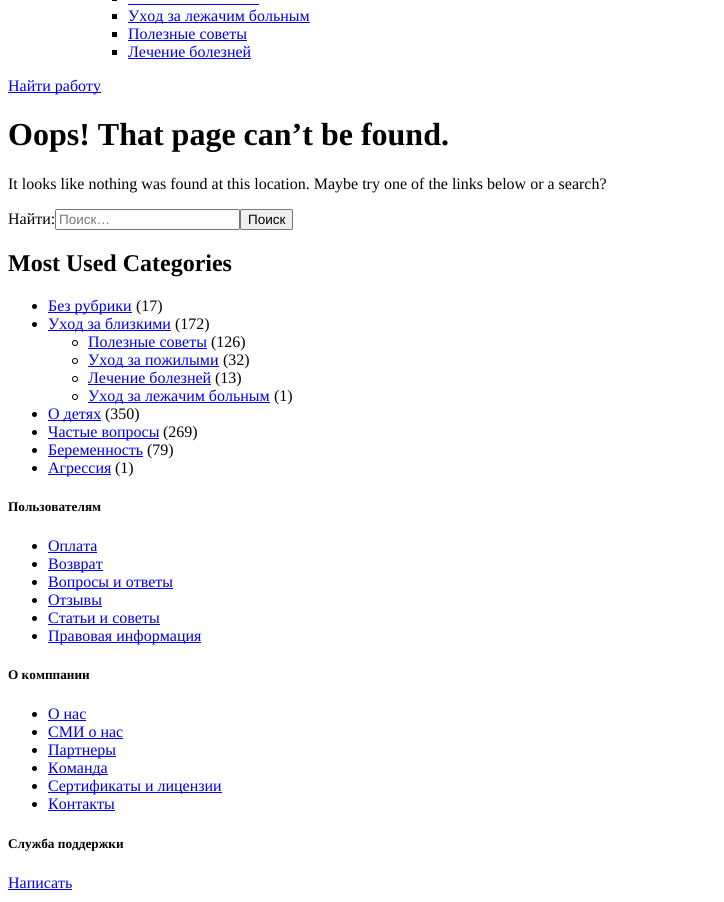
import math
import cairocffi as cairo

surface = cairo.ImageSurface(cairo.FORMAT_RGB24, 724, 902)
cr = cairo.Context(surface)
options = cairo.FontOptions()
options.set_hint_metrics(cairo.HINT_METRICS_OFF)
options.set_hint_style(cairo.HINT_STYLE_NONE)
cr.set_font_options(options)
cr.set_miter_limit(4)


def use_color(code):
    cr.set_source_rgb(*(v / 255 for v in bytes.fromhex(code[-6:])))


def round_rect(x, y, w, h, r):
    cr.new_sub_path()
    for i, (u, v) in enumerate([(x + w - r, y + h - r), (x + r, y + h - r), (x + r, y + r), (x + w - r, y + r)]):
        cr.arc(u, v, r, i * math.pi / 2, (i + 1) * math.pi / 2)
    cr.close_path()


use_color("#ffffff")
cr.paint()
use_color("#000000")
cr.rectangle(112, 0, 5, 1)
cr.fill()
use_color("#0000ee")
cr.rectangle(128, 4, 131, 1)
cr.fill()
use_color("#000000")
cr.rectangle(112, 14, 5, 5)
cr.fill()
use_color("#0000ee")
cr.rectangle(128, 22, 182, 1)
cr.fill()
cr.select_font_face("Liberation Serif")
cr.set_font_size(16)
cr.move_to(128, 21)
cr.show_text("Уход за лежачим больным")
use_color("#000000")
cr.rectangle(112, 32, 5, 5)
cr.fill()
use_color("#0000ee")
cr.move_to(128, 39)
cr.show_text("Полезные советы")
cr.rectangle(128, 40, 119, 1)
cr.fill()
use_color("#000000")
cr.rectangle(112, 50, 5, 5)
cr.fill()
use_color("#0000ee")
cr.move_to(128, 57)
cr.show_text("Лечение болезней")
cr.rectangle(128, 58, 123, 1)
cr.fill()
cr.rectangle(8, 92, 93, 1)
cr.fill()
cr.move_to(8, 91)
cr.show_text("Найти работу")
cr.select_font_face("Liberation Serif", cairo.FONT_SLANT_NORMAL, cairo.FONT_WEIGHT_BOLD)
cr.set_font_size(32)
use_color("#000000")
cr.move_to(8, 145)
cr.show_text("Oops! That page can’t be found.")
cr.select_font_face("Liberation Serif")
cr.set_font_size(16)
cr.move_to(8, 189)
cr.show_text("It looks like nothing was found at this location. Maybe try one of the links below or a search?")
cr.move_to(8, 224)
cr.show_text("Найти:")
round_rect(55.5, 209.5, 184, 20, 1.5)
use_color("#767676")
cr.set_line_width(1)
cr.stroke()
cr.select_font_face("Liberation Sans")
cr.set_font_size(13.5)
use_color("#757575")
cr.move_to(59, 224)
cr.show_text("Поиск…")
use_color("#efefef")
round_rect(240.5, 209.5, 52, 20, 1.5)
cr.fill_preserve()
use_color("#767676")
cr.stroke()
use_color("#000000")
cr.move_to(248, 224)
cr.show_text("Поиск")
cr.select_font_face("Liberation Serif", cairo.FONT_SLANT_NORMAL, cairo.FONT_WEIGHT_BOLD)
cr.set_font_size(24)
cr.move_to(8, 271)
cr.show_text("Most Used Categories")
cr.new_path()
cr.arc(34.5, 306.5, 2.5, 0, 2 * math.pi)
cr.fill()
use_color("#0000ee")
cr.rectangle(48, 312, 84, 1)
cr.fill()
cr.select_font_face("Liberation Serif")
cr.set_font_size(16)
cr.move_to(48, 311)
cr.show_text("Без рубрики")
use_color("#000000")
cr.move_to(136, 311)
cr.show_text("(17)")
cr.new_path()
cr.arc(34.5, 324.5, 2.5, 0, 2 * math.pi)
cr.fill()
use_color("#0000ee")
cr.rectangle(48, 330, 123, 1)
cr.fill()
cr.move_to(48, 329)
cr.show_text("Уход за близкими")
use_color("#000000")
cr.move_to(175, 329)
cr.show_text("(172)")
cr.new_path()
cr.arc(75, 343, 2.5, 0, 2 * math.pi)
cr.stroke()
use_color("#0000ee")
cr.move_to(88, 347)
cr.show_text("Полезные советы")
cr.rectangle(88, 348, 119, 1)
cr.fill()
use_color("#000000")
cr.move_to(211, 347)
cr.show_text("(126)")
cr.new_path()
cr.arc(75, 361, 2.5, 0, 2 * math.pi)
cr.stroke()
use_color("#0000ee")
cr.rectangle(88, 366, 131, 1)
cr.fill()
cr.move_to(88, 365)
cr.show_text("Уход за пожилыми")
use_color("#000000")
cr.move_to(223, 365)
cr.show_text("(32)")
cr.new_path()
cr.arc(75, 379, 2.5, 0, 2 * math.pi)
cr.stroke()
use_color("#0000ee")
cr.move_to(88, 383)
cr.show_text("Лечение болезней")
cr.rectangle(88, 384, 123, 1)
cr.fill()
use_color("#000000")
cr.move_to(215, 383)
cr.show_text("(13)")
cr.new_path()
cr.arc(75, 397, 2.5, 0, 2 * math.pi)
cr.stroke()
use_color("#0000ee")
cr.rectangle(88, 402, 182, 1)
cr.fill()
cr.move_to(88, 401)
cr.show_text("Уход за лежачим больным")
use_color("#000000")
cr.move_to(274, 401)
cr.show_text("(1)")
cr.new_path()
cr.arc(34.5, 414.5, 2.5, 0, 2 * math.pi)
cr.fill()
use_color("#0000ee")
cr.rectangle(48, 420, 53, 1)
cr.fill()
cr.move_to(48, 419)
cr.show_text("О детях")
use_color("#000000")
cr.move_to(105, 419)
cr.show_text("(350)")
cr.new_path()
cr.arc(34.5, 432.5, 2.5, 0, 2 * math.pi)
cr.fill()
use_color("#0000ee")
cr.rectangle(48, 438, 111, 1)
cr.fill()
cr.move_to(48, 437)
cr.show_text("Частые вопросы")
use_color("#000000")
cr.move_to(163, 437)
cr.show_text("(269)")
cr.new_path()
cr.arc(34.5, 450.5, 2.5, 0, 2 * math.pi)
cr.fill()
use_color("#0000ee")
cr.rectangle(48, 456, 95, 1)
cr.fill()
cr.move_to(48, 455)
cr.show_text("Беременность")
use_color("#000000")
cr.move_to(147, 455)
cr.show_text("(79)")
cr.new_path()
cr.arc(34.5, 468.5, 2.5, 0, 2 * math.pi)
cr.fill()
use_color("#0000ee")
cr.rectangle(48, 474, 63, 1)
cr.fill()
cr.move_to(48, 473)
cr.show_text("Агрессия")
use_color("#000000")
cr.move_to(115, 473)
cr.show_text("(1)")
cr.select_font_face("Liberation Serif", cairo.FONT_SLANT_NORMAL, cairo.FONT_WEIGHT_BOLD)
cr.set_font_size(13.25)
cr.move_to(8, 511)
cr.show_text("Пользователям")
cr.new_path()
cr.arc(34.5, 546.5, 2.5, 0, 2 * math.pi)
cr.fill()
cr.select_font_face("Liberation Serif")
cr.set_font_size(16)
use_color("#0000ee")
cr.move_to(48, 551)
cr.show_text("Оплата")
cr.rectangle(48, 552, 49, 1)
cr.fill()
use_color("#000000")
cr.arc(34.5, 564.5, 2.5, 0, 2 * math.pi)
cr.fill()
use_color("#0000ee")
cr.rectangle(48, 570, 55, 1)
cr.fill()
cr.move_to(48, 569)
cr.show_text("Возврат")
use_color("#000000")
cr.new_path()
cr.arc(34.5, 582.5, 2.5, 0, 2 * math.pi)
cr.fill()
use_color("#0000ee")
cr.rectangle(48, 588, 125, 1)
cr.fill()
cr.move_to(48, 587)
cr.show_text("Вопросы и ответы")
use_color("#000000")
cr.new_path()
cr.arc(34.5, 600.5, 2.5, 0, 2 * math.pi)
cr.fill()
use_color("#0000ee")
cr.move_to(48, 605)
cr.show_text("Отзывы")
cr.rectangle(48, 606, 54, 1)
cr.fill()
use_color("#000000")
cr.arc(34.5, 618.5, 2.5, 0, 2 * math.pi)
cr.fill()
use_color("#0000ee")
cr.move_to(48, 623)
cr.show_text("Статьи и советы")
cr.rectangle(48, 624, 112, 1)
cr.fill()
use_color("#000000")
cr.arc(34.5, 636.5, 2.5, 0, 2 * math.pi)
cr.fill()
use_color("#0000ee")
cr.rectangle(48, 642, 153, 1)
cr.fill()
cr.move_to(48, 641)
cr.show_text("Правовая информация")
cr.select_font_face("Liberation Serif", cairo.FONT_SLANT_NORMAL, cairo.FONT_WEIGHT_BOLD)
cr.set_font_size(13.25)
use_color("#000000")
cr.move_to(8, 679)
cr.show_text("О комппании")
cr.new_path()
cr.arc(34.5, 714.5, 2.5, 0, 2 * math.pi)
cr.fill()
cr.select_font_face("Liberation Serif")
cr.set_font_size(16)
use_color("#0000ee")
cr.move_to(48, 719)
cr.show_text("О нас")
cr.rectangle(48, 720, 38, 1)
cr.fill()
use_color("#000000")
cr.arc(34.5, 732.5, 2.5, 0, 2 * math.pi)
cr.fill()
use_color("#0000ee")
cr.move_to(48, 737)
cr.show_text("СМИ о нас")
cr.rectangle(48, 738, 75, 1)
cr.fill()
use_color("#000000")
cr.arc(34.5, 750.5, 2.5, 0, 2 * math.pi)
cr.fill()
use_color("#0000ee")
cr.rectangle(48, 756, 68, 1)
cr.fill()
cr.move_to(48, 755)
cr.show_text("Партнеры")
use_color("#000000")
cr.new_path()
cr.arc(34.5, 768.5, 2.5, 0, 2 * math.pi)
cr.fill()
use_color("#0000ee")
cr.rectangle(48, 774, 60, 1)
cr.fill()
cr.move_to(48, 773)
cr.show_text("Команда")
use_color("#000000")
cr.new_path()
cr.arc(34.5, 786.5, 2.5, 0, 2 * math.pi)
cr.fill()
use_color("#0000ee")
cr.rectangle(48, 792, 174, 1)
cr.fill()
cr.move_to(48, 791)
cr.show_text("Сертификаты и лицензии")
use_color("#000000")
cr.new_path()
cr.arc(34.5, 804.5, 2.5, 0, 2 * math.pi)
cr.fill()
use_color("#0000ee")
cr.move_to(48, 809)
cr.show_text("Контакты")
cr.rectangle(48, 810, 67, 1)
cr.fill()
cr.select_font_face("Liberation Serif", cairo.FONT_SLANT_NORMAL, cairo.FONT_WEIGHT_BOLD)
cr.set_font_size(13.25)
use_color("#000000")
cr.move_to(8, 848)
cr.show_text("Служба поддержки")
cr.select_font_face("Liberation Serif")
cr.set_font_size(16)
use_color("#0000ee")
cr.move_to(8, 888)
cr.show_text("Написать")
cr.rectangle(8, 889, 64, 1)
cr.fill()
surface.write_to_png("result.png")
